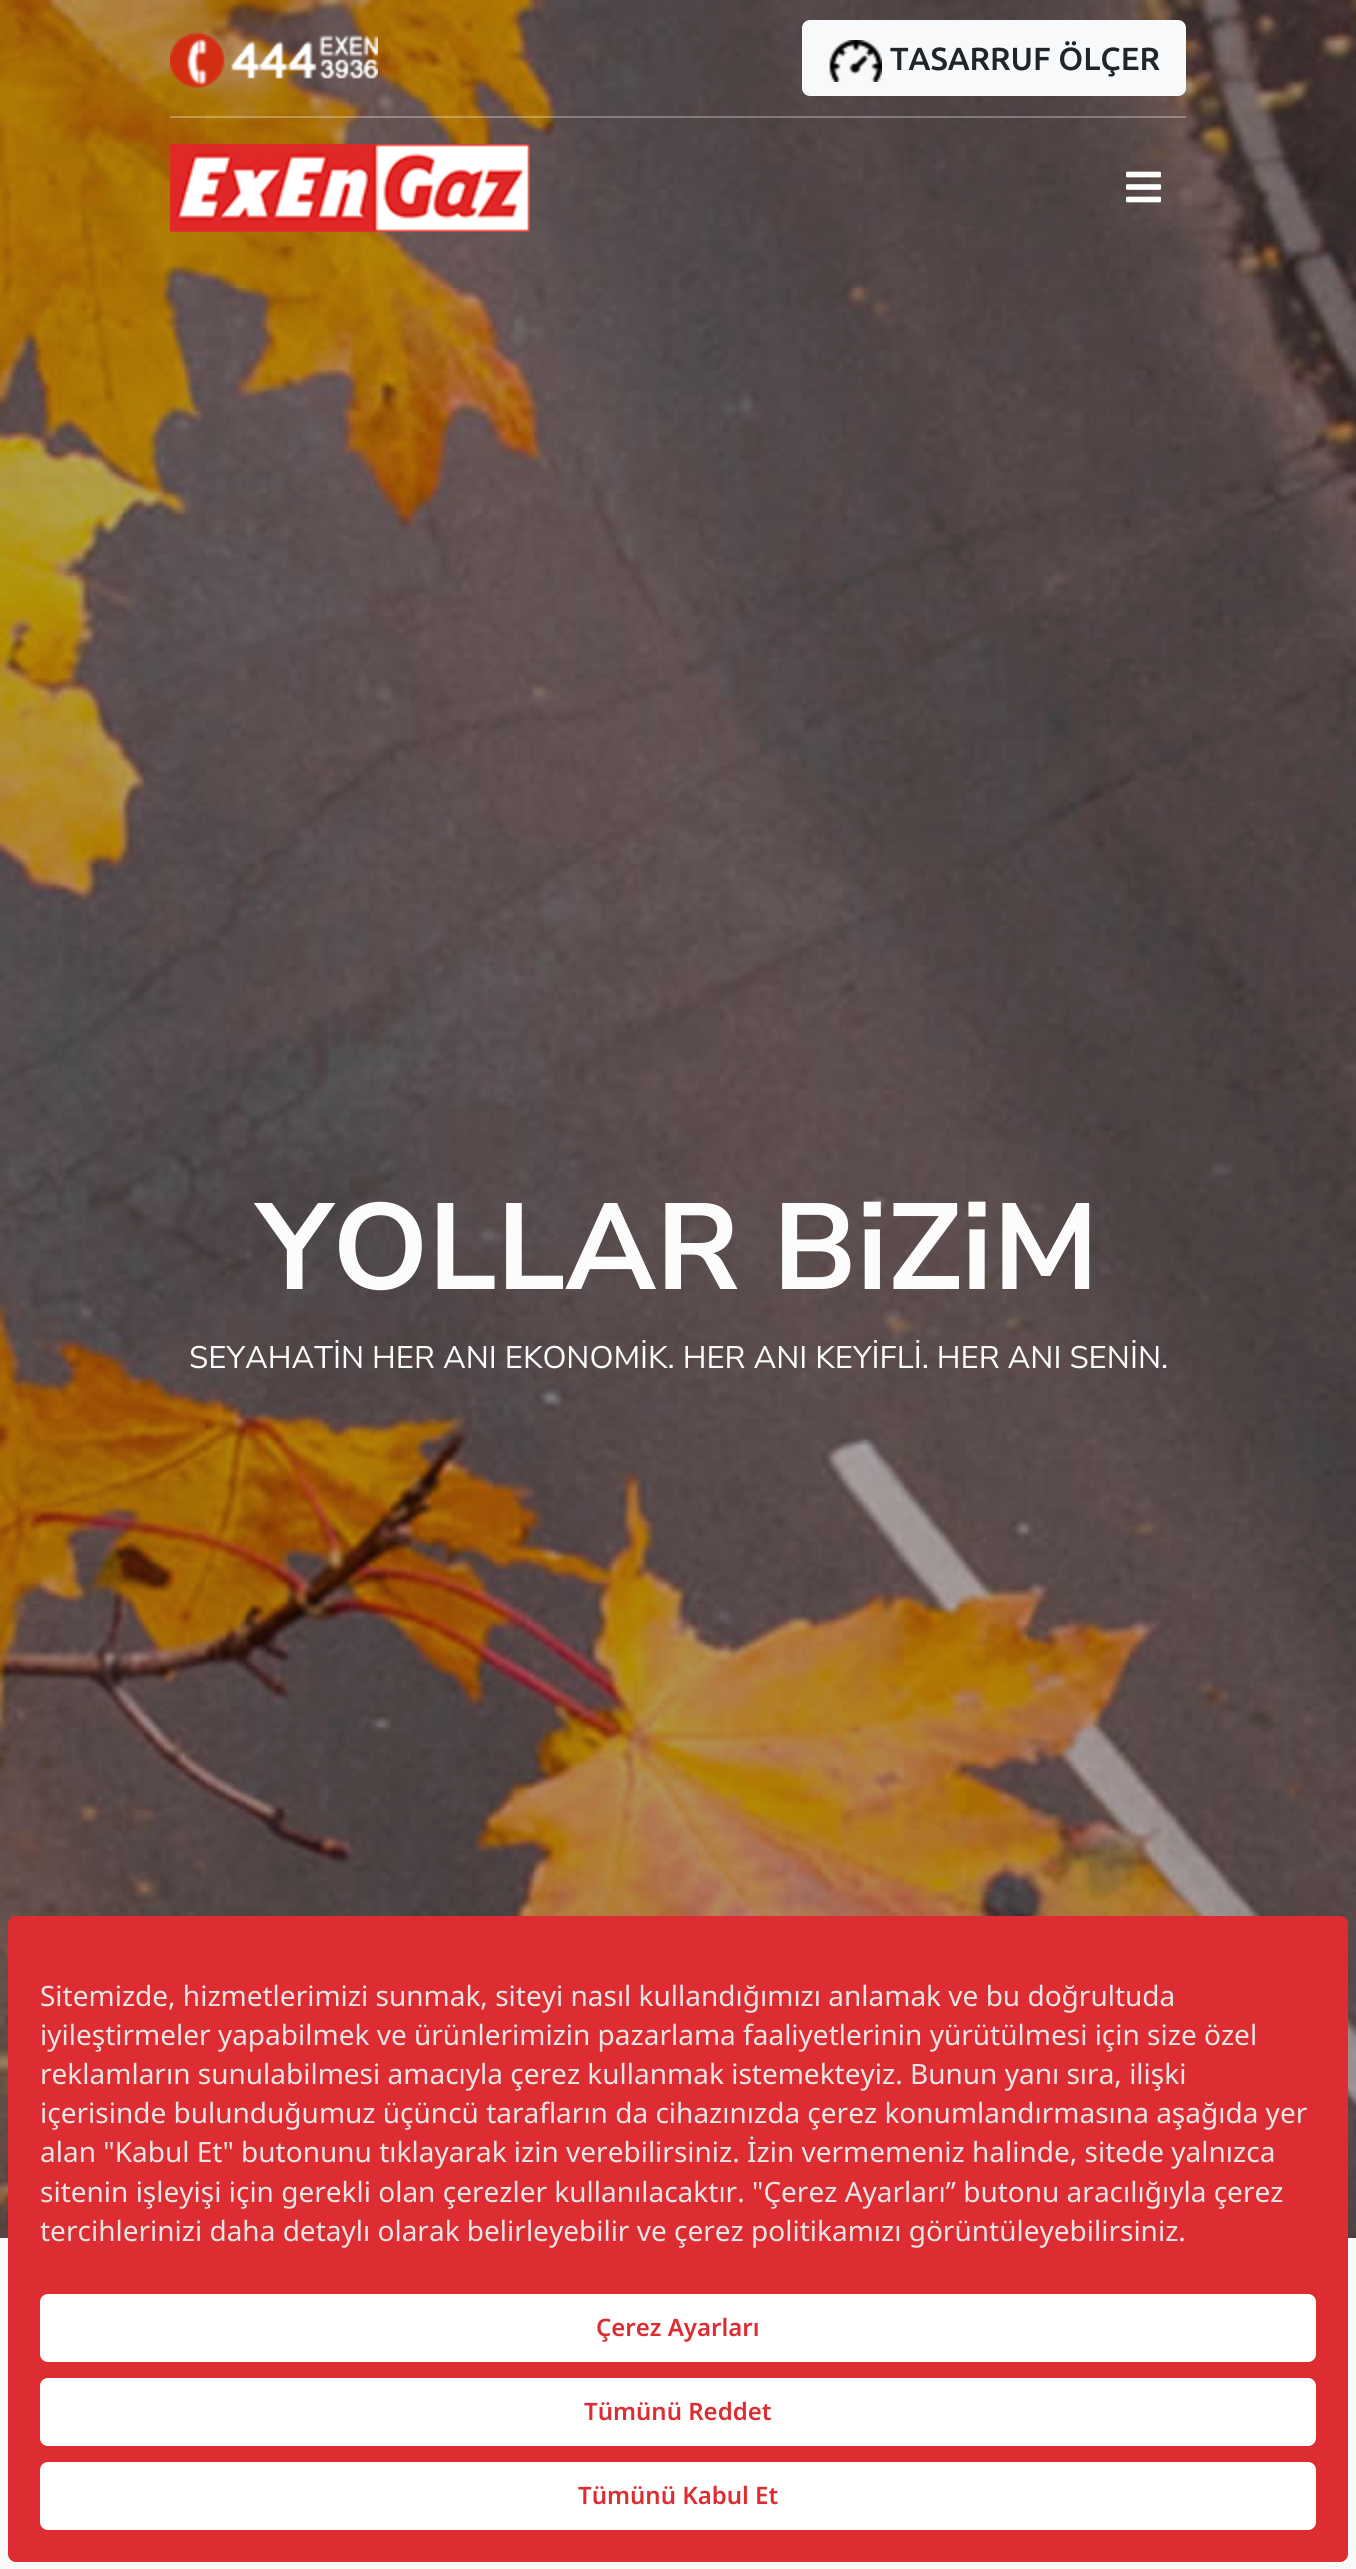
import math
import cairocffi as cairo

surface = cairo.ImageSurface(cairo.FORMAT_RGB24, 1356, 2569)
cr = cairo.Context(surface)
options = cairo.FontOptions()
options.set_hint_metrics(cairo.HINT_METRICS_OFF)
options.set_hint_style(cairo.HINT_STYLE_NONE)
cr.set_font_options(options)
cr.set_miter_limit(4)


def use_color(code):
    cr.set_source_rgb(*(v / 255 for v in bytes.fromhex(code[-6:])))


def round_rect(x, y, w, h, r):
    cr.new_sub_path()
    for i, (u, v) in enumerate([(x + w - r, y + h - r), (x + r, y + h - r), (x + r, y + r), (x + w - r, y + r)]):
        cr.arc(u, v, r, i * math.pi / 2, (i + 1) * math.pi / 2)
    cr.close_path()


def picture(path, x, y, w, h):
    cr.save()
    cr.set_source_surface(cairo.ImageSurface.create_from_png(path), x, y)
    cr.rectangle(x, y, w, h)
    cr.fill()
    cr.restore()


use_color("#ffffff")
cr.paint()
picture("img5.png", 0, 0, 1356, 2238)
cr.set_source_rgba(1, 1, 1, 0.3)
cr.rectangle(170, 116, 1016, 2)
cr.fill()
picture("img1.png", 170, 32, 208, 56)
use_color("#f8f9fa")
round_rect(803, 21, 382, 74, 7)
cr.fill_preserve()
cr.stroke()
picture("img2.png", 829, 40, 53, 42)
cr.select_font_face("Ubuntu Medium")
cr.set_font_size(32)
use_color("#212529")
cr.move_to(890, 70)
cr.show_text("TASARRUF ÖLÇER")
picture("img3.png", 170, 144, 360, 88)
picture("img4.png", 1126, 171, 35, 32)
cr.select_font_face("Nunito Sans", cairo.FONT_SLANT_NORMAL, cairo.FONT_WEIGHT_BOLD)
cr.set_font_size(122)
use_color("#fcfcfc")
cr.move_to(257, 1289)
cr.show_text("YOLLAR BiZiM")
cr.select_font_face("Nunito Sans")
cr.set_font_size(31.2)
cr.move_to(189, 1368)
cr.show_text("SEYAHATİN HER ANI EKONOMİK. HER ANI KEYİFLİ. HER ANI SENİN.")
use_color("#fafafa")
cr.rectangle(0, 2238, 1356, 331)
cr.fill()
use_color("#dd2d32")
round_rect(8, 1916, 1340, 646, 8)
cr.fill()
cr.select_font_face("Noto Sans")
cr.set_font_size(28)
use_color("#e6e6e6")
cr.move_to(40, 2006)
cr.show_text("Sitemizde, hizmetlerimizi sunmak, siteyi nasıl kullandığımızı anlamak ve bu doğrultuda")
cr.move_to(40, 2045)
cr.show_text("iyileştirmeler yapabilmek ve ürünlerimizin pazarlama faaliyetlerinin yürütülmesi için size özel")
cr.move_to(40, 2084)
cr.show_text("reklamların sunulabilmesi amacıyla çerez kullanmak istemekteyiz. Bunun yanı sıra, ilişki")
cr.move_to(40, 2123)
cr.show_text("içerisinde bulunduğumuz üçüncü tarafların da cihazınızda çerez konumlandırmasına aşağıda yer")
cr.move_to(40, 2162)
cr.show_text("alan \"Kabul Et\" butonunu tıklayarak izin verebilirsiniz. İzin vermemeniz halinde, sitede yalnızca")
cr.move_to(40, 2202)
cr.show_text("sitenin işleyişi için gerekli olan çerezler kullanılacaktır. \"Çerez Ayarları” butonu aracılığıyla çerez")
cr.move_to(40, 2241)
cr.show_text("tercihlerinizi daha detaylı olarak belirleyebilir ve çerez politikamızı görüntüleyebilirsiniz.")
use_color("#ffffff")
round_rect(40, 2294, 1276, 68, 8)
cr.fill()
cr.select_font_face("Noto Sans SemiBold")
cr.set_font_size(24)
use_color("#dd2d32")
cr.move_to(596, 2336)
cr.show_text("Çerez Ayarları")
use_color("#ffffff")
round_rect(40, 2378, 1276, 68, 8)
cr.fill()
use_color("#dd2d32")
cr.move_to(584, 2420)
cr.show_text("Tümünü Reddet")
use_color("#ffffff")
round_rect(40, 2462, 1276, 68, 8)
cr.fill()
use_color("#dd2d32")
cr.move_to(578, 2504)
cr.show_text("Tümünü Kabul Et")
surface.write_to_png("result.png")
